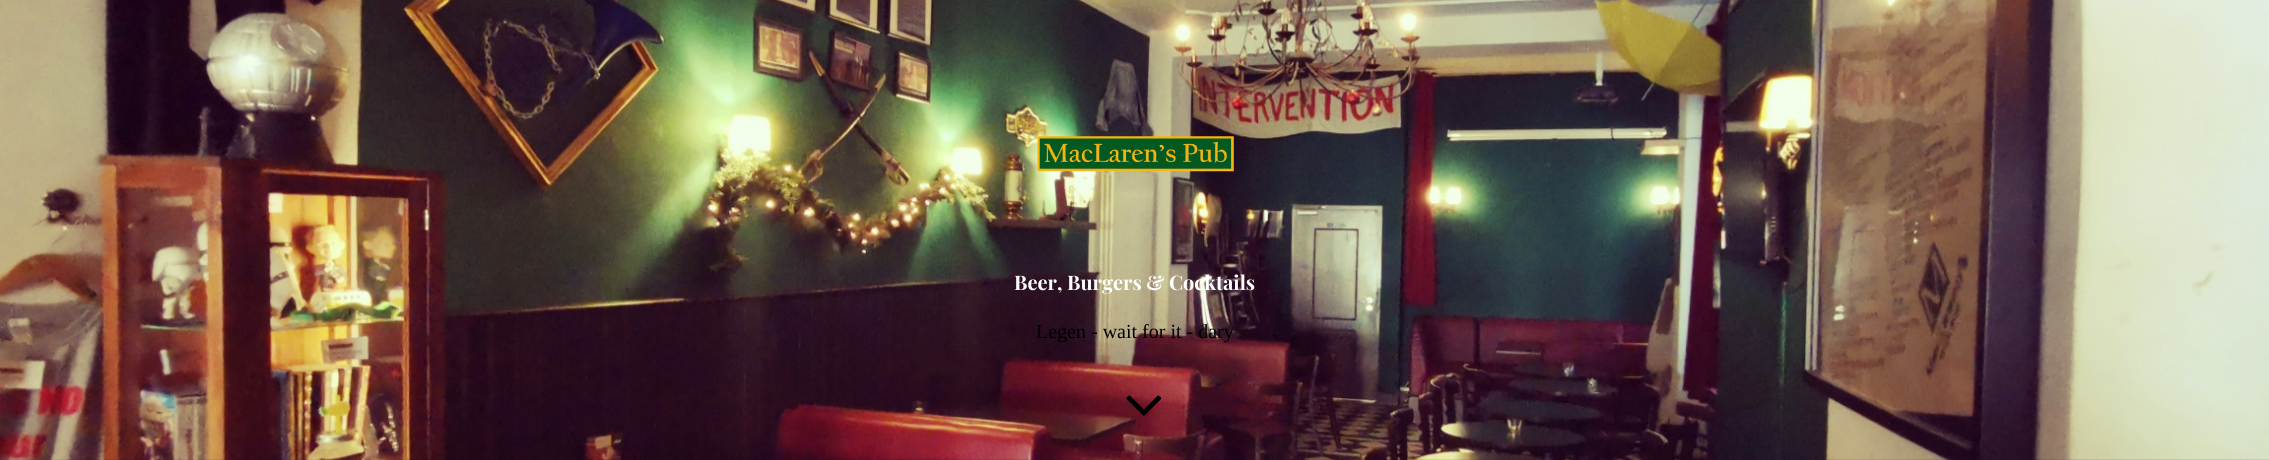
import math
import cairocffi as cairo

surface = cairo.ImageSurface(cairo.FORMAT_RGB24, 2269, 460)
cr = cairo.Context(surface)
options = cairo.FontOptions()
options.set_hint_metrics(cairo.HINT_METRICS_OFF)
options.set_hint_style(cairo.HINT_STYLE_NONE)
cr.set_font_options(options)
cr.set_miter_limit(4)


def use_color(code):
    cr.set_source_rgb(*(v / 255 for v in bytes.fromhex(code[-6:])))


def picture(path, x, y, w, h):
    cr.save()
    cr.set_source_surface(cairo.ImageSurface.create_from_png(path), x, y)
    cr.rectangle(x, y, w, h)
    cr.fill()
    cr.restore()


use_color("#ffffff")
cr.paint()
picture("img4.png", 0, 459, 2269, 1)
picture("img1.png", 0, 0, 2269, 460)
picture("img2.png", 1037, 136, 197, 36)
cr.select_font_face("Playfair Display", cairo.FONT_SLANT_NORMAL, cairo.FONT_WEIGHT_BOLD)
cr.set_font_size(20)
use_color("#ffffff")
cr.move_to(1014, 290)
cr.show_text("Beer, Burgers & Cocktails")
cr.select_font_face("Liberation Serif")
use_color("#000000")
cr.move_to(1036, 338)
cr.show_text("Legen - wait for it - dary")
picture("img3.png", 1126, 395, 36, 21)
surface.write_to_png("result.png")
